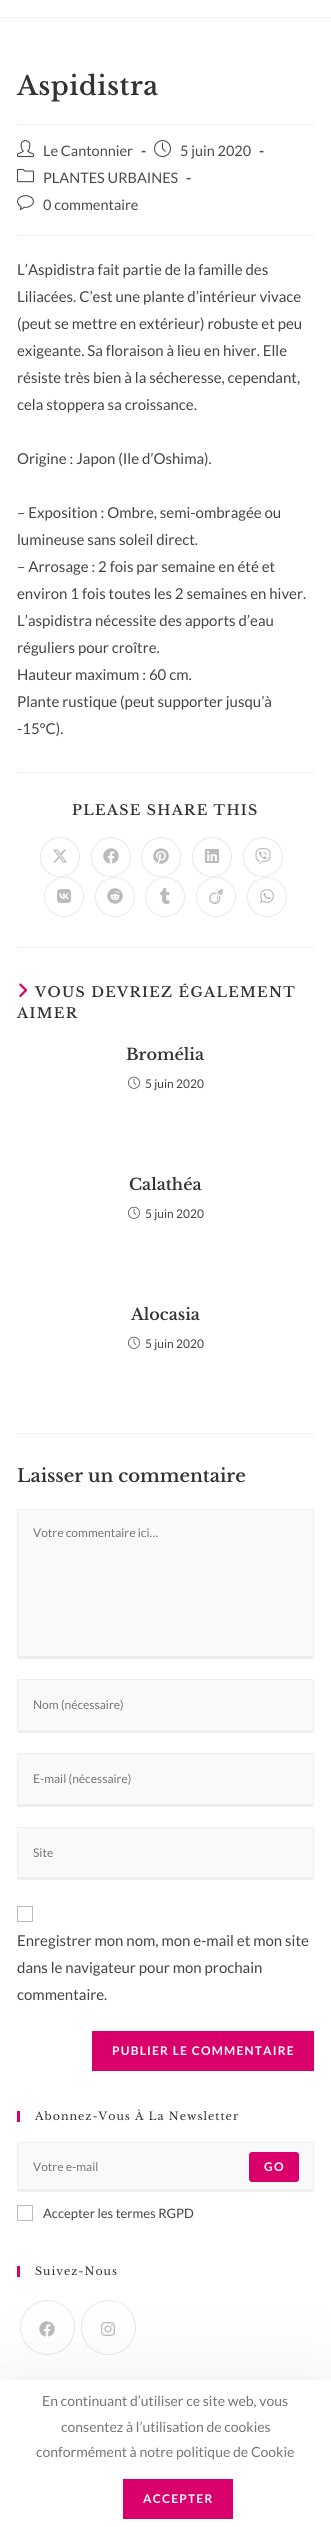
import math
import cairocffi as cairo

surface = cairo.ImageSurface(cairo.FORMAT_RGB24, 331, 2527)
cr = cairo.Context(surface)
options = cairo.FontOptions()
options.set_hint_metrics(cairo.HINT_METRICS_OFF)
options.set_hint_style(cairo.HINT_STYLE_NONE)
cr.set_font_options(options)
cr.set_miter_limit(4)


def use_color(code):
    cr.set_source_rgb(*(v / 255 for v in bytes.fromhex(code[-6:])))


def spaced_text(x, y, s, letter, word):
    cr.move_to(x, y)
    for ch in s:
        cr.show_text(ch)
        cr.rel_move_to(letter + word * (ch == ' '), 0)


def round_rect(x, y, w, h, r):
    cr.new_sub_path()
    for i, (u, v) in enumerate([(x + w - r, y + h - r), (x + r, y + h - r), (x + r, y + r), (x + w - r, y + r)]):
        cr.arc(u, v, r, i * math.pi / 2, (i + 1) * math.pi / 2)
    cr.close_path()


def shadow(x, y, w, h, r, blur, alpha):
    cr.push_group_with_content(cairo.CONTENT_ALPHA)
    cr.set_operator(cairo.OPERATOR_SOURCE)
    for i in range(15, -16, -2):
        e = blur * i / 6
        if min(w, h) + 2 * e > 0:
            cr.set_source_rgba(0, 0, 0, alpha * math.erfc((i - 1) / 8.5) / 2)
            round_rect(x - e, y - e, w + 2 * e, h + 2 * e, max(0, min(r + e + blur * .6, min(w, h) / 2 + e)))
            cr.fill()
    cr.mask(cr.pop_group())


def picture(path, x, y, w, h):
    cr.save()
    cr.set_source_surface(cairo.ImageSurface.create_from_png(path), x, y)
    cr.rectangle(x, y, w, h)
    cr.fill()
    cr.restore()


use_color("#ffffff")
cr.paint()
use_color("#f1f1f1")
cr.rectangle(0, 17, 331, 1)
cr.fill()
cr.rectangle(17, 124, 297, 1)
cr.fill()
cr.select_font_face("Libre Baskerville SemiBold")
cr.set_font_size(26)
use_color("#333333")
spaced_text(17, 95, "Aspidistra", 0.5, 0)
use_color("#f1f1f1")
cr.rectangle(17, 235, 297, 1)
cr.fill()
picture("img1.png", 17, 140, 17, 18)
cr.select_font_face("Lato")
cr.set_font_size(14.5)
use_color("#4a4a4a")
cr.move_to(43, 156)
cr.show_text("Le Cantonnier")
cr.select_font_face("Lato", cairo.FONT_SLANT_NORMAL, cairo.FONT_WEIGHT_BOLD)
cr.move_to(141, 156)
cr.show_text("-")
picture("img2.png", 154, 140, 17, 18)
cr.select_font_face("Lato")
cr.move_to(180, 156)
cr.show_text("5 juin 2020")
cr.select_font_face("Lato", cairo.FONT_SLANT_NORMAL, cairo.FONT_WEIGHT_BOLD)
cr.move_to(259, 156)
cr.show_text("-")
picture("img3.png", 17, 168, 17, 15)
cr.select_font_face("Lato")
cr.move_to(43, 183)
cr.show_text("PLANTES URBAINES")
cr.select_font_face("Lato", cairo.FONT_SLANT_NORMAL, cairo.FONT_WEIGHT_BOLD)
cr.move_to(186, 183)
cr.show_text("-")
picture("img4.png", 17, 195, 17, 15)
cr.select_font_face("Lato")
cr.move_to(43, 210)
cr.show_text("0 commentaire")
cr.set_font_size(15)
use_color("#444444")
cr.move_to(17, 275)
cr.show_text("L’Aspidistra fait partie de la famille des")
cr.move_to(17, 302)
cr.show_text("Liliacées. C’est une plante d’intérieur vivace")
cr.move_to(17, 329)
cr.show_text("(peut se mettre en extérieur) robuste et peu")
cr.move_to(17, 356)
cr.show_text("exigeante. Sa floraison à lieu en hiver. Elle")
cr.move_to(17, 383)
cr.show_text("résiste très bien à la sécheresse, cependant,")
cr.move_to(17, 410)
cr.show_text("cela stoppera sa croissance.")
cr.move_to(17, 464)
cr.show_text("Origine : Japon (Ile d’Oshima).")
cr.move_to(17, 518)
cr.show_text("– Exposition : Ombre, semi-ombragée ou")
cr.move_to(17, 545)
cr.show_text("lumineuse sans soleil direct.")
cr.move_to(17, 572)
cr.show_text("– Arrosage : 2 fois par semaine en été et")
cr.move_to(17, 599)
cr.show_text("environ 1 fois toutes les 2 semaines en hiver.")
cr.move_to(17, 626)
cr.show_text("L’aspidistra nécessite des apports d’eau")
cr.move_to(17, 653)
cr.show_text("réguliers pour croître.")
cr.move_to(17, 680)
cr.show_text("Hauteur maximum : 60 cm.")
cr.move_to(17, 707)
cr.show_text("Plante rustique (peut supporter jusqu’à")
cr.move_to(17, 734)
cr.show_text("-15°C).")
use_color("#f1f1f1")
cr.rectangle(17, 772, 297, 1)
cr.fill()
cr.select_font_face("Libre Baskerville SemiBold")
cr.set_font_size(14)
use_color("#333333")
spaced_text(72, 815, "PLEASE SHARE THIS", 1.3, 0)
cr.new_path()
cr.arc(60, 857, 19.5, 0, 2 * math.pi)
use_color("#e9e9e9")
cr.set_line_width(1)
cr.stroke()
picture("img5.png", 53, 849, 14, 14)
cr.arc(111, 857, 19.5, 0, 2 * math.pi)
cr.stroke()
picture("img6.png", 103, 848, 16, 16)
cr.arc(161, 857, 19.5, 0, 2 * math.pi)
cr.stroke()
picture("img7.png", 153, 848, 16, 16)
cr.arc(212, 857, 19.5, 0, 2 * math.pi)
cr.stroke()
picture("img8.png", 205, 849, 14, 14)
cr.arc(263, 857, 19.5, 0, 2 * math.pi)
cr.stroke()
picture("img9.png", 255, 848, 16, 16)
cr.arc(64, 897, 19.5, 0, 2 * math.pi)
cr.stroke()
picture("img10.png", 57, 889, 14, 14)
cr.arc(115, 897, 19.5, 0, 2 * math.pi)
cr.stroke()
picture("img11.png", 107, 888, 16, 16)
cr.arc(165, 897, 19.5, 0, 2 * math.pi)
cr.stroke()
picture("img12.png", 160, 888, 10, 16)
cr.arc(216, 897, 19.5, 0, 2 * math.pi)
cr.stroke()
picture("img13.png", 209, 888, 14, 16)
cr.arc(267, 897, 19.5, 0, 2 * math.pi)
cr.stroke()
picture("img14.png", 260, 889, 14, 14)
use_color("#f1f1f1")
cr.rectangle(17, 947, 297, 1)
cr.fill()
picture("img15.png", 19, 983, 9, 14)
use_color("#333333")
spaced_text(35, 997, "VOUS DEVRIEZ ÉGALEMENT", 1.3, 0)
spaced_text(17, 1018, "AIMER", 1.3, 0)
cr.set_font_size(16)
cr.move_to(126, 1060)
cr.show_text("Bromélia")
picture("img16.png", 128, 1076, 12, 13)
cr.select_font_face("Lato")
cr.set_font_size(12)
use_color("#444444")
cr.move_to(145, 1088)
cr.show_text("5 juin 2020")
cr.select_font_face("Libre Baskerville SemiBold")
cr.set_font_size(16)
use_color("#333333")
cr.move_to(129, 1190)
cr.show_text("Calathéa")
picture("img16.png", 128, 1206, 12, 13)
cr.select_font_face("Lato")
cr.set_font_size(12)
use_color("#444444")
cr.move_to(145, 1218)
cr.show_text("5 juin 2020")
cr.select_font_face("Libre Baskerville SemiBold")
cr.set_font_size(16)
use_color("#333333")
cr.move_to(131, 1320)
cr.show_text("Alocasia")
picture("img16.png", 128, 1336, 12, 13)
cr.select_font_face("Lato")
cr.set_font_size(12)
use_color("#444444")
cr.move_to(145, 1348)
cr.show_text("5 juin 2020")
use_color("#f1f1f1")
cr.rectangle(17, 1433, 297, 1)
cr.fill()
cr.select_font_face("Libre Baskerville SemiBold")
cr.set_font_size(18)
use_color("#333333")
cr.move_to(17, 1482)
cr.show_text("Laisser un commentaire")
use_color("#f9f9f9")
cr.new_path()
cr.move_to(19, 1510)
cr.line_to(312, 1510)
cr.curve_to(313, 1510, 313, 1510, 313, 1511)
cr.line_to(313, 1656)
cr.line_to(18, 1656)
cr.line_to(18, 1511)
cr.close_path()
cr.fill()
round_rect(17.5, 1509.5, 296, 149, 1.5)
use_color("#eeeeee")
cr.stroke()
cr.rectangle(18, 1656, 295, 2)
cr.fill()
cr.select_font_face("Lato")
cr.set_font_size(12)
use_color("#757575")
cr.move_to(33, 1537)
cr.show_text("Votre commentaire ici…")
use_color("#f9f9f9")
cr.new_path()
cr.move_to(19, 1680)
cr.line_to(312, 1680)
cr.curve_to(313, 1680, 313, 1680, 313, 1681)
cr.line_to(313, 1730)
cr.line_to(18, 1730)
cr.line_to(18, 1680)
cr.close_path()
cr.fill()
round_rect(17.5, 1679.5, 296, 53, 1.5)
use_color("#eeeeee")
cr.stroke()
cr.rectangle(18, 1730, 295, 2)
cr.fill()
use_color("#757575")
cr.move_to(33, 1709)
cr.show_text("Nom (nécessaire)")
use_color("#f9f9f9")
cr.new_path()
cr.move_to(19, 1754)
cr.line_to(312, 1754)
cr.curve_to(313, 1754, 313, 1754, 313, 1755)
cr.line_to(313, 1804)
cr.line_to(18, 1804)
cr.line_to(18, 1754)
cr.close_path()
cr.fill()
round_rect(17.5, 1753.5, 296, 53, 1.5)
use_color("#eeeeee")
cr.stroke()
cr.rectangle(18, 1804, 295, 2)
cr.fill()
use_color("#757575")
cr.move_to(33, 1783)
cr.show_text("E-mail (nécessaire)")
use_color("#f9f9f9")
cr.new_path()
cr.move_to(19, 1828)
cr.line_to(312, 1828)
cr.curve_to(313, 1828, 313, 1828, 313, 1829)
cr.line_to(313, 1877)
cr.line_to(18, 1877)
cr.line_to(18, 1828)
cr.close_path()
cr.fill()
round_rect(17.5, 1827.5, 296, 52, 1.5)
use_color("#eeeeee")
cr.stroke()
cr.rectangle(18, 1877, 295, 2)
cr.fill()
use_color("#757575")
cr.move_to(33, 1857)
cr.show_text("Site")
cr.rectangle(17.5, 1906.5, 15, 15)
use_color("#bbbbbb")
cr.stroke()
cr.set_font_size(15)
use_color("#444444")
cr.move_to(17, 1946)
cr.show_text("Enregistrer mon nom, mon e-mail et mon site")
cr.move_to(17, 1973)
cr.show_text("dans le navigateur pour mon prochain")
cr.move_to(17, 2000)
cr.show_text("commentaire.")
use_color("#d9006b")
cr.rectangle(92, 2031, 222, 40)
cr.fill()
cr.select_font_face("Lato", cairo.FONT_SLANT_NORMAL, cairo.FONT_WEIGHT_BOLD)
cr.set_font_size(12)
use_color("#ffffff")
spaced_text(112, 2055, "PUBLIER LE COMMENTAIRE", 1.2, 0)
use_color("#d9006b")
cr.rectangle(17, 2111, 3, 11)
cr.fill()
cr.select_font_face("Libre Baskerville")
cr.set_font_size(11)
use_color("#333333")
spaced_text(35, 2120, "Abonnez-Vous À La Newsletter", 1, 0)
use_color("#f9f9f9")
cr.new_path()
cr.move_to(19, 2143)
cr.line_to(312, 2143)
cr.curve_to(313, 2143, 313, 2143, 313, 2144)
cr.line_to(313, 2189)
cr.line_to(18, 2189)
cr.line_to(18, 2144)
cr.close_path()
cr.fill()
round_rect(17.5, 2142.5, 296, 49, 1.5)
use_color("#eeeeee")
cr.stroke()
cr.rectangle(18, 2189, 295, 2)
cr.fill()
cr.select_font_face("Lato")
cr.set_font_size(12)
use_color("#757575")
cr.move_to(33, 2171)
cr.show_text("Votre e-mail")
use_color("#d9006b")
round_rect(249, 2152, 50, 30, 3)
cr.fill()
cr.select_font_face("Lato", cairo.FONT_SLANT_NORMAL, cairo.FONT_WEIGHT_BOLD)
use_color("#ffffff")
spaced_text(264, 2171, "GO", 1.2, 0)
cr.rectangle(17.5, 2205.5, 15, 15)
use_color("#bbbbbb")
cr.stroke()
cr.select_font_face("Lato")
cr.set_font_size(13)
use_color("#444444")
cr.move_to(43, 2218)
cr.show_text("Accepter les termes RGPD")
use_color("#d9006b")
cr.rectangle(17, 2266, 3, 11)
cr.fill()
cr.select_font_face("Libre Baskerville")
cr.set_font_size(11)
use_color("#333333")
spaced_text(35, 2275, "Suivez-Nous", 1, 0)
cr.new_path()
cr.arc(47.5, 2327.5, 27, 0, 2 * math.pi)
use_color("#e9e9e9")
cr.stroke()
picture("img17.png", 39, 2321, 16, 16)
cr.arc(108.5, 2327.5, 27, 0, 2 * math.pi)
cr.stroke()
picture("img18.png", 101, 2322, 14, 14)
use_color("#000000")
shadow(0, 2400, 331, 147, 0, 50, 0.1)
use_color("#ffffff")
cr.rectangle(0, 2380, 331, 147)
cr.fill()
cr.select_font_face("Lato")
cr.set_font_size(14)
use_color("#757575")
cr.move_to(42, 2406)
cr.show_text("En continuant d’utiliser ce site web, vous")
cr.move_to(61, 2432)
cr.show_text("consentez à l’utilisation de cookies")
cr.move_to(36, 2457)
cr.show_text("conformément à notre politique de Cookie")
use_color("#d9006b")
cr.rectangle(123, 2479, 110, 40)
cr.fill()
cr.select_font_face("Lato", cairo.FONT_SLANT_NORMAL, cairo.FONT_WEIGHT_BOLD)
cr.set_font_size(12)
use_color("#ffffff")
spaced_text(143, 2503, "ACCEPTER", 1.2, 0)
surface.write_to_png("result.png")
